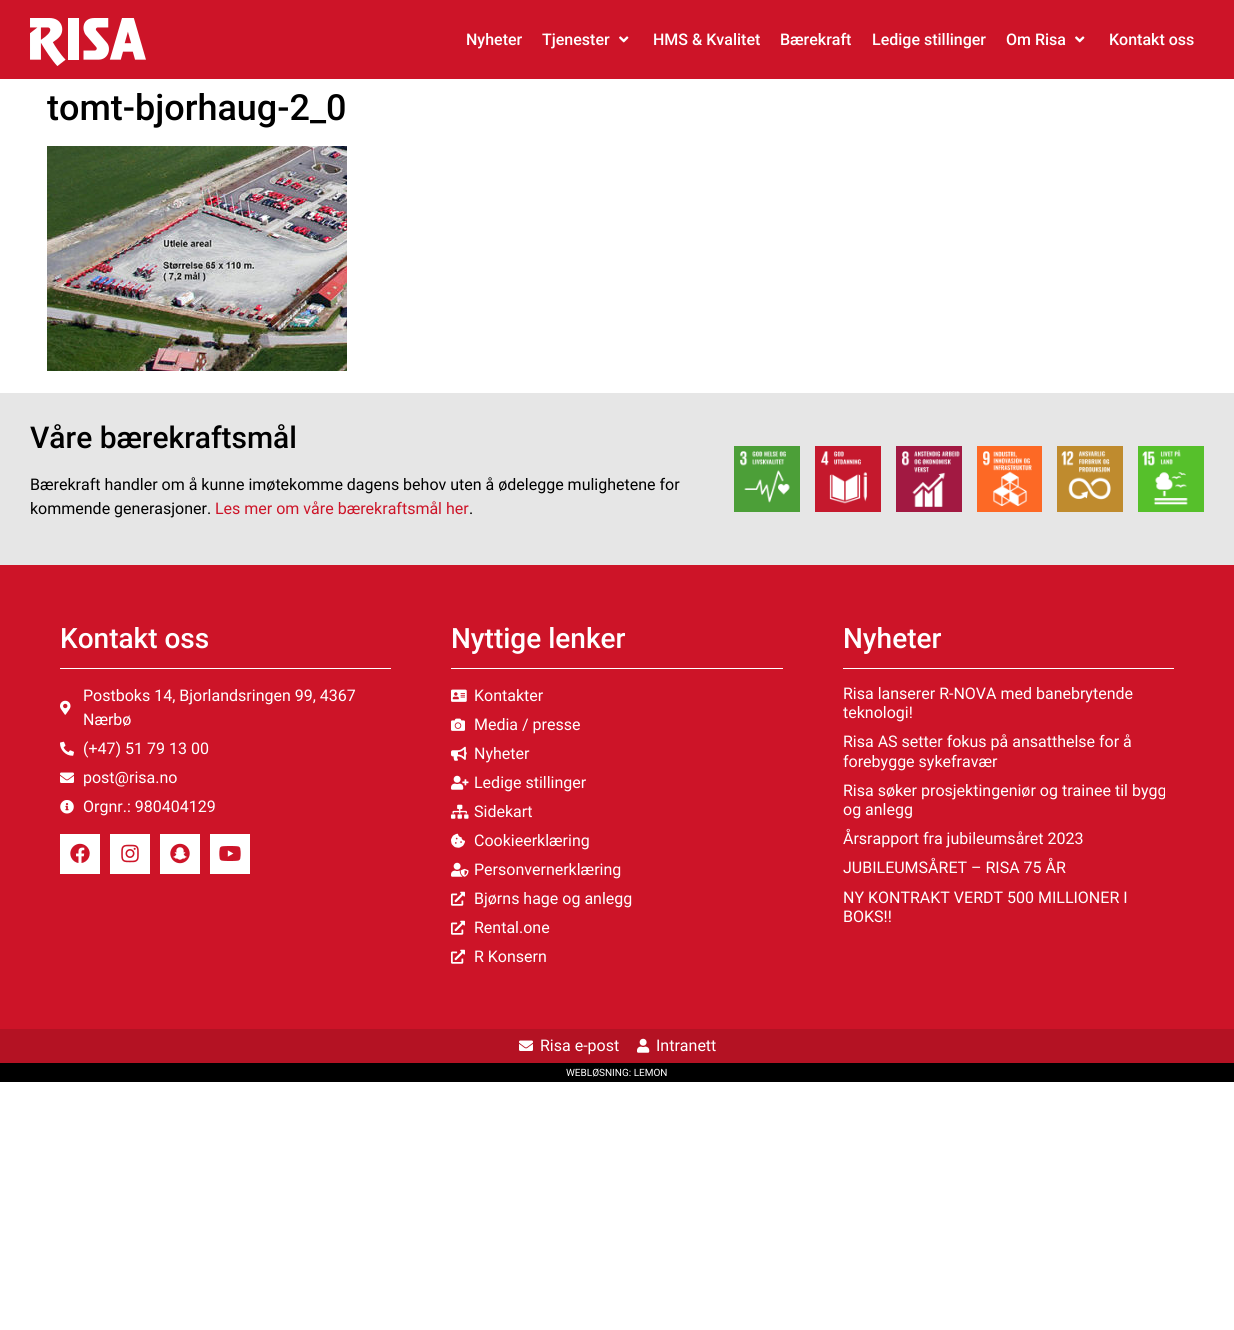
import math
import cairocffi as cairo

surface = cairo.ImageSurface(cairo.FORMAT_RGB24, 1234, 1330)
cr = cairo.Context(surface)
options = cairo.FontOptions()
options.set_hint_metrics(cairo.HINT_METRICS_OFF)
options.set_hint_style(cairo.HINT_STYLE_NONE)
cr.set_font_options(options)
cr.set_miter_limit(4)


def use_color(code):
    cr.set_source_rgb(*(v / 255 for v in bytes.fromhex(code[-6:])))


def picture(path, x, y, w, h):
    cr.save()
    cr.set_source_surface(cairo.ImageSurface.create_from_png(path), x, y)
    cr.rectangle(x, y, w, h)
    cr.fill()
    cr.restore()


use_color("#ffffff")
cr.paint()
use_color("#cd1428")
cr.rectangle(0, 0, 1234, 79)
cr.fill()
picture("img1.png", 30, 18, 116, 48)
cr.select_font_face("Roboto Medium")
cr.set_font_size(16)
use_color("#ffffff")
cr.move_to(466, 45)
cr.show_text("Nyheter")
cr.move_to(542, 45)
cr.show_text("Tjenester")
picture("img2.png", 619, 36, 10, 7)
cr.move_to(653, 45)
cr.show_text("HMS & Kvalitet")
cr.move_to(780, 45)
cr.show_text("Bærekraft")
cr.move_to(872, 45)
cr.show_text("Ledige stillinger")
cr.move_to(1006, 45)
cr.show_text("Om Risa")
picture("img2.png", 1075, 36, 10, 7)
cr.move_to(1109, 45)
cr.show_text("Kontakt oss")
cr.set_font_size(36)
use_color("#000000")
cr.move_to(47, 120)
cr.show_text("tomt-bjorhaug-2_0")
picture("img3.png", 47, 146, 300, 225)
use_color("#e6e6e6")
cr.rectangle(0, 393, 1234, 172)
cr.fill()
cr.set_font_size(30)
use_color("#000000")
cr.move_to(30, 448)
cr.show_text("Våre bærekraftsmål")
cr.select_font_face("Roboto")
cr.set_font_size(16)
cr.move_to(30, 490)
cr.show_text("Bærekraft handler om å kunne imøtekomme dagens behov uten å ødelegge mulighetene for")
cr.move_to(30, 514)
cr.show_text("kommende generasjoner.")
use_color("#cd1428")
cr.move_to(215, 514)
cr.show_text("Les mer om våre bærekraftsmål her")
use_color("#000000")
cr.move_to(469, 514)
cr.show_text(".")
picture("img4.png", 734, 446, 66, 66)
picture("img5.png", 815, 446, 66, 66)
picture("img6.png", 896, 446, 66, 66)
picture("img7.png", 977, 446, 65, 66)
picture("img8.png", 1057, 446, 66, 66)
picture("img9.png", 1138, 446, 66, 66)
use_color("#cd1428")
cr.rectangle(0, 565, 1234, 464)
cr.fill()
cr.select_font_face("Roboto Medium")
cr.set_font_size(28)
use_color("#ffffff")
cr.move_to(60, 648)
cr.show_text("Kontakt oss")
cr.rectangle(60, 668, 331, 1)
cr.fill()
picture("img10.png", 60, 700, 11, 15)
cr.select_font_face("Roboto")
cr.set_font_size(16)
cr.move_to(83, 701)
cr.show_text("Postboks 14, Bjorlandsringen 99, 4367")
cr.move_to(83, 725)
cr.show_text("Nærbø")
picture("img11.png", 60, 741, 14, 15)
cr.move_to(83, 754)
cr.show_text("(+47) 51 79 13 00")
picture("img12.png", 60, 772, 14, 11)
cr.move_to(83, 783)
cr.show_text("post@risa.no")
picture("img13.png", 60, 800, 14, 14)
cr.move_to(83, 812)
cr.show_text("Orgnr.: 980404129")
cr.rectangle(60, 834, 40, 40)
cr.fill()
picture("img14.png", 70, 843, 20, 20)
cr.rectangle(110, 834, 40, 40)
cr.fill()
picture("img15.png", 121, 844, 18, 19)
cr.rectangle(160, 834, 40, 40)
cr.fill()
picture("img16.png", 170, 843, 20, 21)
cr.rectangle(210, 834, 40, 40)
cr.fill()
picture("img17.png", 219, 846, 22, 15)
cr.select_font_face("Roboto Medium")
cr.set_font_size(28)
cr.move_to(451, 648)
cr.show_text("Nyttige lenker")
cr.rectangle(451, 668, 332, 1)
cr.fill()
picture("img18.png", 451, 689, 16, 13)
cr.select_font_face("Roboto")
cr.set_font_size(16)
cr.move_to(474, 701)
cr.show_text("Kontakter")
picture("img19.png", 451, 718, 14, 13)
cr.move_to(474, 730)
cr.show_text("Media / presse")
picture("img20.png", 451, 746, 16, 15)
cr.move_to(474, 759)
cr.show_text("Nyheter")
picture("img21.png", 451, 775, 18, 15)
cr.move_to(474, 788)
cr.show_text("Ledige stillinger")
picture("img22.png", 451, 804, 18, 15)
cr.move_to(474, 817)
cr.show_text("Sidekart")
picture("img23.png", 451, 833, 14, 15)
cr.move_to(474, 846)
cr.show_text("Cookieerklæring")
picture("img24.png", 451, 862, 18, 15)
cr.move_to(474, 875)
cr.show_text("Personvernerklæring")
picture("img25.png", 451, 891, 14, 15)
cr.move_to(474, 904)
cr.show_text("Bjørns hage og anlegg")
picture("img25.png", 451, 920, 14, 15)
cr.move_to(474, 933)
cr.show_text("Rental.one")
picture("img25.png", 451, 949, 14, 15)
cr.move_to(474, 962)
cr.show_text("R Konsern")
cr.select_font_face("Roboto Medium")
cr.set_font_size(28)
cr.move_to(843, 648)
cr.show_text("Nyheter")
cr.rectangle(843, 668, 331, 1)
cr.fill()
cr.select_font_face("Roboto")
cr.set_font_size(16)
cr.move_to(843, 699)
cr.show_text("Risa lanserer R-NOVA med banebrytende")
cr.move_to(843, 718)
cr.show_text("teknologi!")
cr.move_to(843, 747)
cr.show_text("Risa AS setter fokus på ansatthelse for å")
cr.move_to(843, 767)
cr.show_text("forebygge sykefravær")
cr.move_to(843, 796)
cr.show_text("Risa søker prosjektingeniør og trainee til bygg")
cr.move_to(843, 815)
cr.show_text("og anlegg")
cr.move_to(843, 844)
cr.show_text("Årsrapport fra jubileumsåret 2023")
cr.move_to(843, 873)
cr.show_text("JUBILEUMSÅRET – RISA 75 ÅR")
cr.move_to(843, 903)
cr.show_text("NY KONTRAKT VERDT 500 MILLIONER I")
cr.move_to(843, 922)
cr.show_text("BOKS!!")
use_color("#b41223")
cr.rectangle(0, 1029, 1234, 34)
cr.fill()
picture("img26.png", 519, 1040, 14, 11)
use_color("#ffffff")
cr.move_to(540, 1051)
cr.show_text("Risa e-post")
picture("img27.png", 637, 1038, 13, 15)
cr.move_to(656, 1051)
cr.show_text("Intranett")
use_color("#000000")
cr.rectangle(0, 1063, 1234, 19)
cr.fill()
cr.set_font_size(10)
use_color("#ffffff")
cr.move_to(566, 1076)
cr.show_text("WEBLØSNING: LEMON")
surface.write_to_png("result.png")
